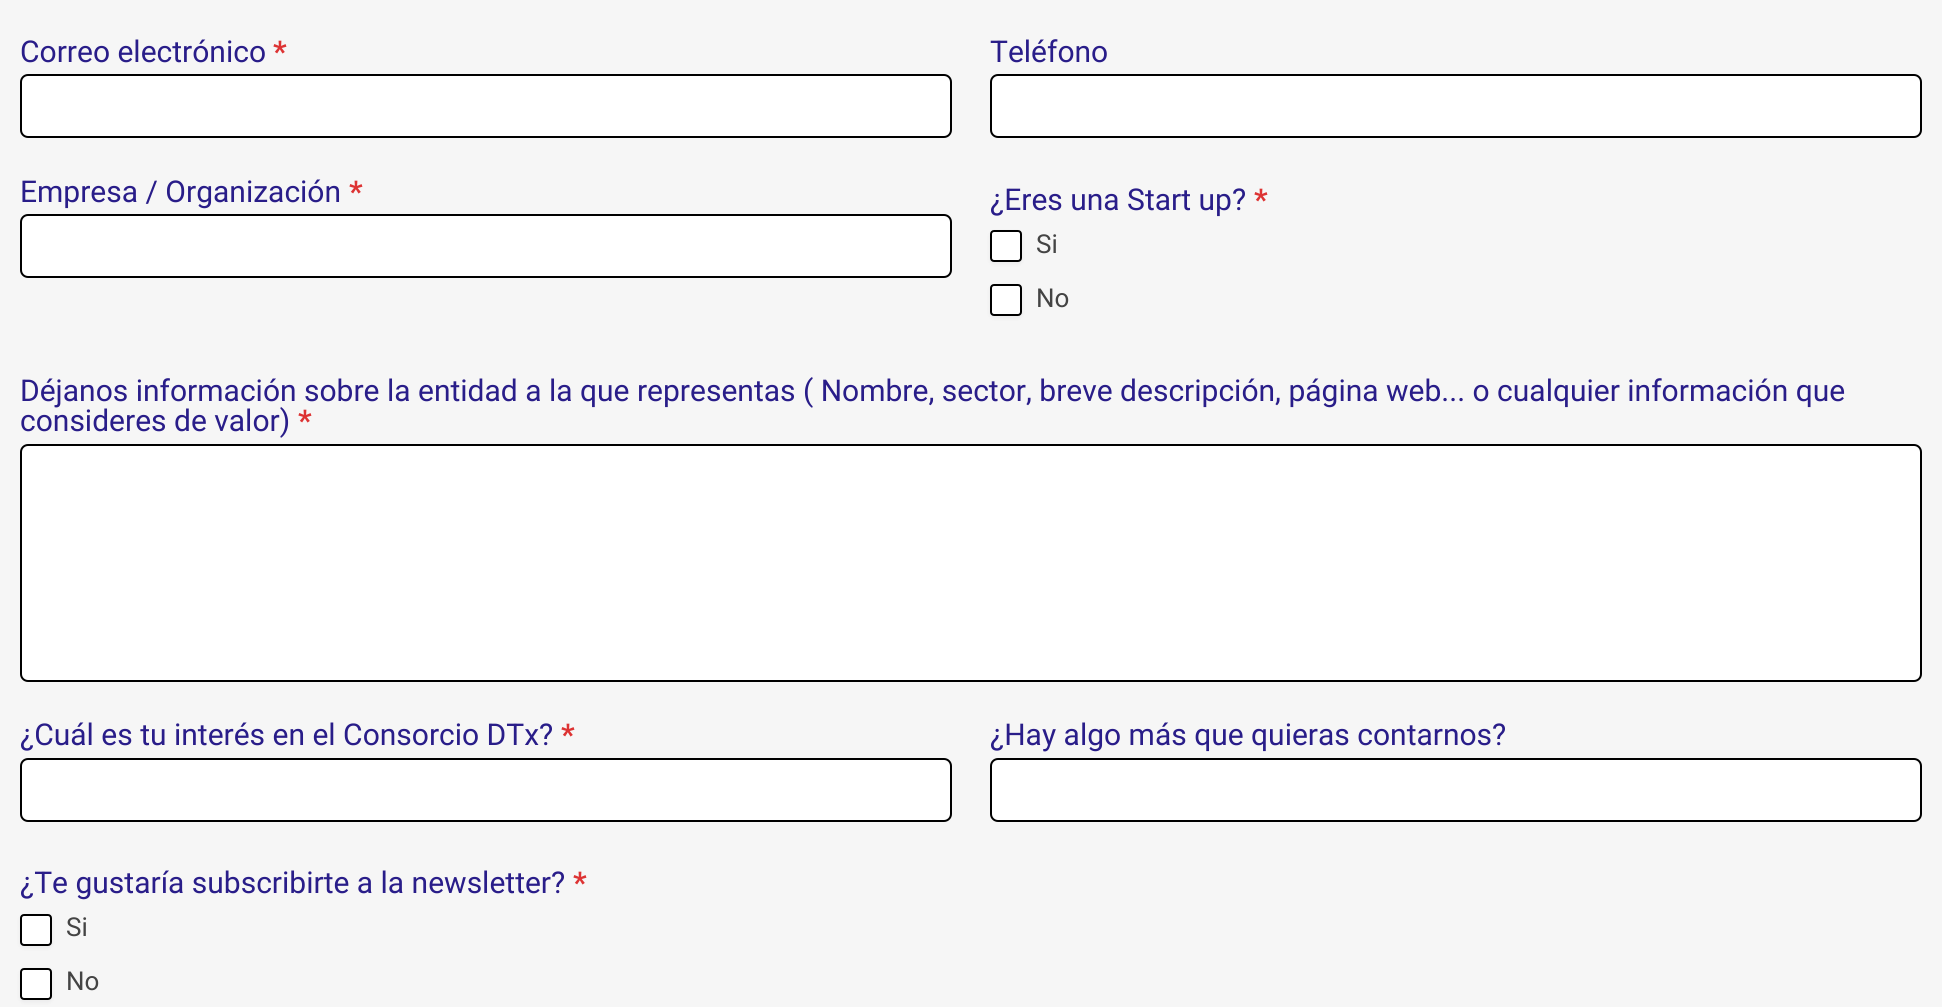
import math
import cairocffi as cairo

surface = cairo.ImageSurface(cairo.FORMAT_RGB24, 1942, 1007)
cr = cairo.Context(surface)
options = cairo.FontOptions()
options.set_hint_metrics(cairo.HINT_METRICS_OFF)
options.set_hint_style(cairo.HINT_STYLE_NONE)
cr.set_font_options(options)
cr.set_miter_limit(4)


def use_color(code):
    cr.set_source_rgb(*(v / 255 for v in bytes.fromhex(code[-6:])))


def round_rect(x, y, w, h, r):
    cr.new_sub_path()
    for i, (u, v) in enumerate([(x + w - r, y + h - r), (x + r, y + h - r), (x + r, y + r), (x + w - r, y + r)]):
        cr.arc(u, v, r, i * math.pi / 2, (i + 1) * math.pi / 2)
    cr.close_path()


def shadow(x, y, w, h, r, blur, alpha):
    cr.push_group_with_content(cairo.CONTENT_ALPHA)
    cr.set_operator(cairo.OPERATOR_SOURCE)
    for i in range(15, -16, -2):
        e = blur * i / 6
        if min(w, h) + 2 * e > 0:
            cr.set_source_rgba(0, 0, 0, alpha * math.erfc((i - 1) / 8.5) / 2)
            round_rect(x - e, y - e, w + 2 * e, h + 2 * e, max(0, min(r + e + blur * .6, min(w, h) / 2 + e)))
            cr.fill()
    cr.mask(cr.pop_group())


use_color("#f6f6f6")
cr.paint()
cr.select_font_face("Roboto")
cr.set_font_size(30)
use_color("#291d89")
cr.move_to(20, 62)
cr.show_text("Correo electrónico")
cr.select_font_face("Roboto", cairo.FONT_SLANT_NORMAL, cairo.FONT_WEIGHT_BOLD)
use_color("#dd3333")
cr.move_to(273, 62)
cr.show_text("*")
use_color("#ffffff")
round_rect(21, 75, 930, 62, 7)
cr.fill_preserve()
use_color("#000000")
cr.stroke()
cr.select_font_face("Roboto")
use_color("#291d89")
cr.move_to(990, 62)
cr.show_text("Teléfono")
use_color("#ffffff")
round_rect(991, 75, 930, 62, 7)
cr.fill_preserve()
use_color("#000000")
cr.stroke()
use_color("#291d89")
cr.move_to(20, 202)
cr.show_text("Empresa / Organización")
cr.select_font_face("Roboto", cairo.FONT_SLANT_NORMAL, cairo.FONT_WEIGHT_BOLD)
use_color("#dd3333")
cr.move_to(349, 202)
cr.show_text("*")
use_color("#ffffff")
round_rect(21, 215, 930, 62, 7)
cr.fill_preserve()
use_color("#000000")
cr.stroke()
cr.select_font_face("Roboto")
use_color("#291d89")
cr.move_to(990, 210)
cr.show_text("¿Eres una Start up?")
cr.select_font_face("Roboto", cairo.FONT_SLANT_NORMAL, cairo.FONT_WEIGHT_BOLD)
use_color("#dd3333")
cr.move_to(1254, 210)
cr.show_text("*")
use_color("#121217")
shadow(990, 232, 32, 32, 4, 2, 0.05)
use_color("#ffffff")
round_rect(991, 231, 30, 30, 3)
cr.fill_preserve()
use_color("#000000")
cr.stroke()
cr.select_font_face("Roboto")
cr.set_font_size(26)
use_color("#444444")
cr.move_to(1036, 253)
cr.show_text("Si")
use_color("#121217")
shadow(990, 286, 32, 32, 4, 2, 0.05)
use_color("#ffffff")
round_rect(991, 285, 30, 30, 3)
cr.fill_preserve()
use_color("#000000")
cr.stroke()
use_color("#444444")
cr.move_to(1036, 307)
cr.show_text("No")
cr.set_font_size(30)
use_color("#291d89")
cr.move_to(20, 401)
cr.show_text("Déjanos información sobre la entidad a la que representas ( Nombre, sector, breve descripción, página web... o cualquier información que")
cr.move_to(20, 431)
cr.show_text("consideres de valor)")
cr.select_font_face("Roboto", cairo.FONT_SLANT_NORMAL, cairo.FONT_WEIGHT_BOLD)
use_color("#dd3333")
cr.move_to(298, 431)
cr.show_text("*")
use_color("#ffffff")
round_rect(21, 445, 1900, 236, 7)
cr.fill_preserve()
use_color("#000000")
cr.stroke()
cr.select_font_face("Roboto")
use_color("#291d89")
cr.move_to(20, 745)
cr.show_text("¿Cuál es tu interés en el Consorcio DTx?")
cr.select_font_face("Roboto", cairo.FONT_SLANT_NORMAL, cairo.FONT_WEIGHT_BOLD)
use_color("#dd3333")
cr.move_to(561, 745)
cr.show_text("*")
use_color("#ffffff")
round_rect(21, 759, 930, 62, 7)
cr.fill_preserve()
use_color("#000000")
cr.stroke()
cr.select_font_face("Roboto")
use_color("#291d89")
cr.move_to(990, 745)
cr.show_text("¿Hay algo más que quieras contarnos?")
use_color("#ffffff")
round_rect(991, 759, 930, 62, 7)
cr.fill_preserve()
use_color("#000000")
cr.stroke()
use_color("#291d89")
cr.move_to(20, 893)
cr.show_text("¿Te gustaría subscribirte a la newsletter?")
cr.select_font_face("Roboto", cairo.FONT_SLANT_NORMAL, cairo.FONT_WEIGHT_BOLD)
use_color("#dd3333")
cr.move_to(573, 893)
cr.show_text("*")
use_color("#121217")
shadow(20, 916, 32, 32, 4, 2, 0.05)
use_color("#ffffff")
round_rect(21, 915, 30, 30, 3)
cr.fill_preserve()
use_color("#000000")
cr.stroke()
cr.select_font_face("Roboto")
cr.set_font_size(26)
use_color("#444444")
cr.move_to(66, 936)
cr.show_text("Si")
use_color("#121217")
shadow(20, 970, 32, 32, 4, 2, 0.05)
use_color("#ffffff")
round_rect(21, 969, 30, 30, 3)
cr.fill_preserve()
use_color("#000000")
cr.stroke()
use_color("#444444")
cr.move_to(66, 990)
cr.show_text("No")
surface.write_to_png("result.png")
